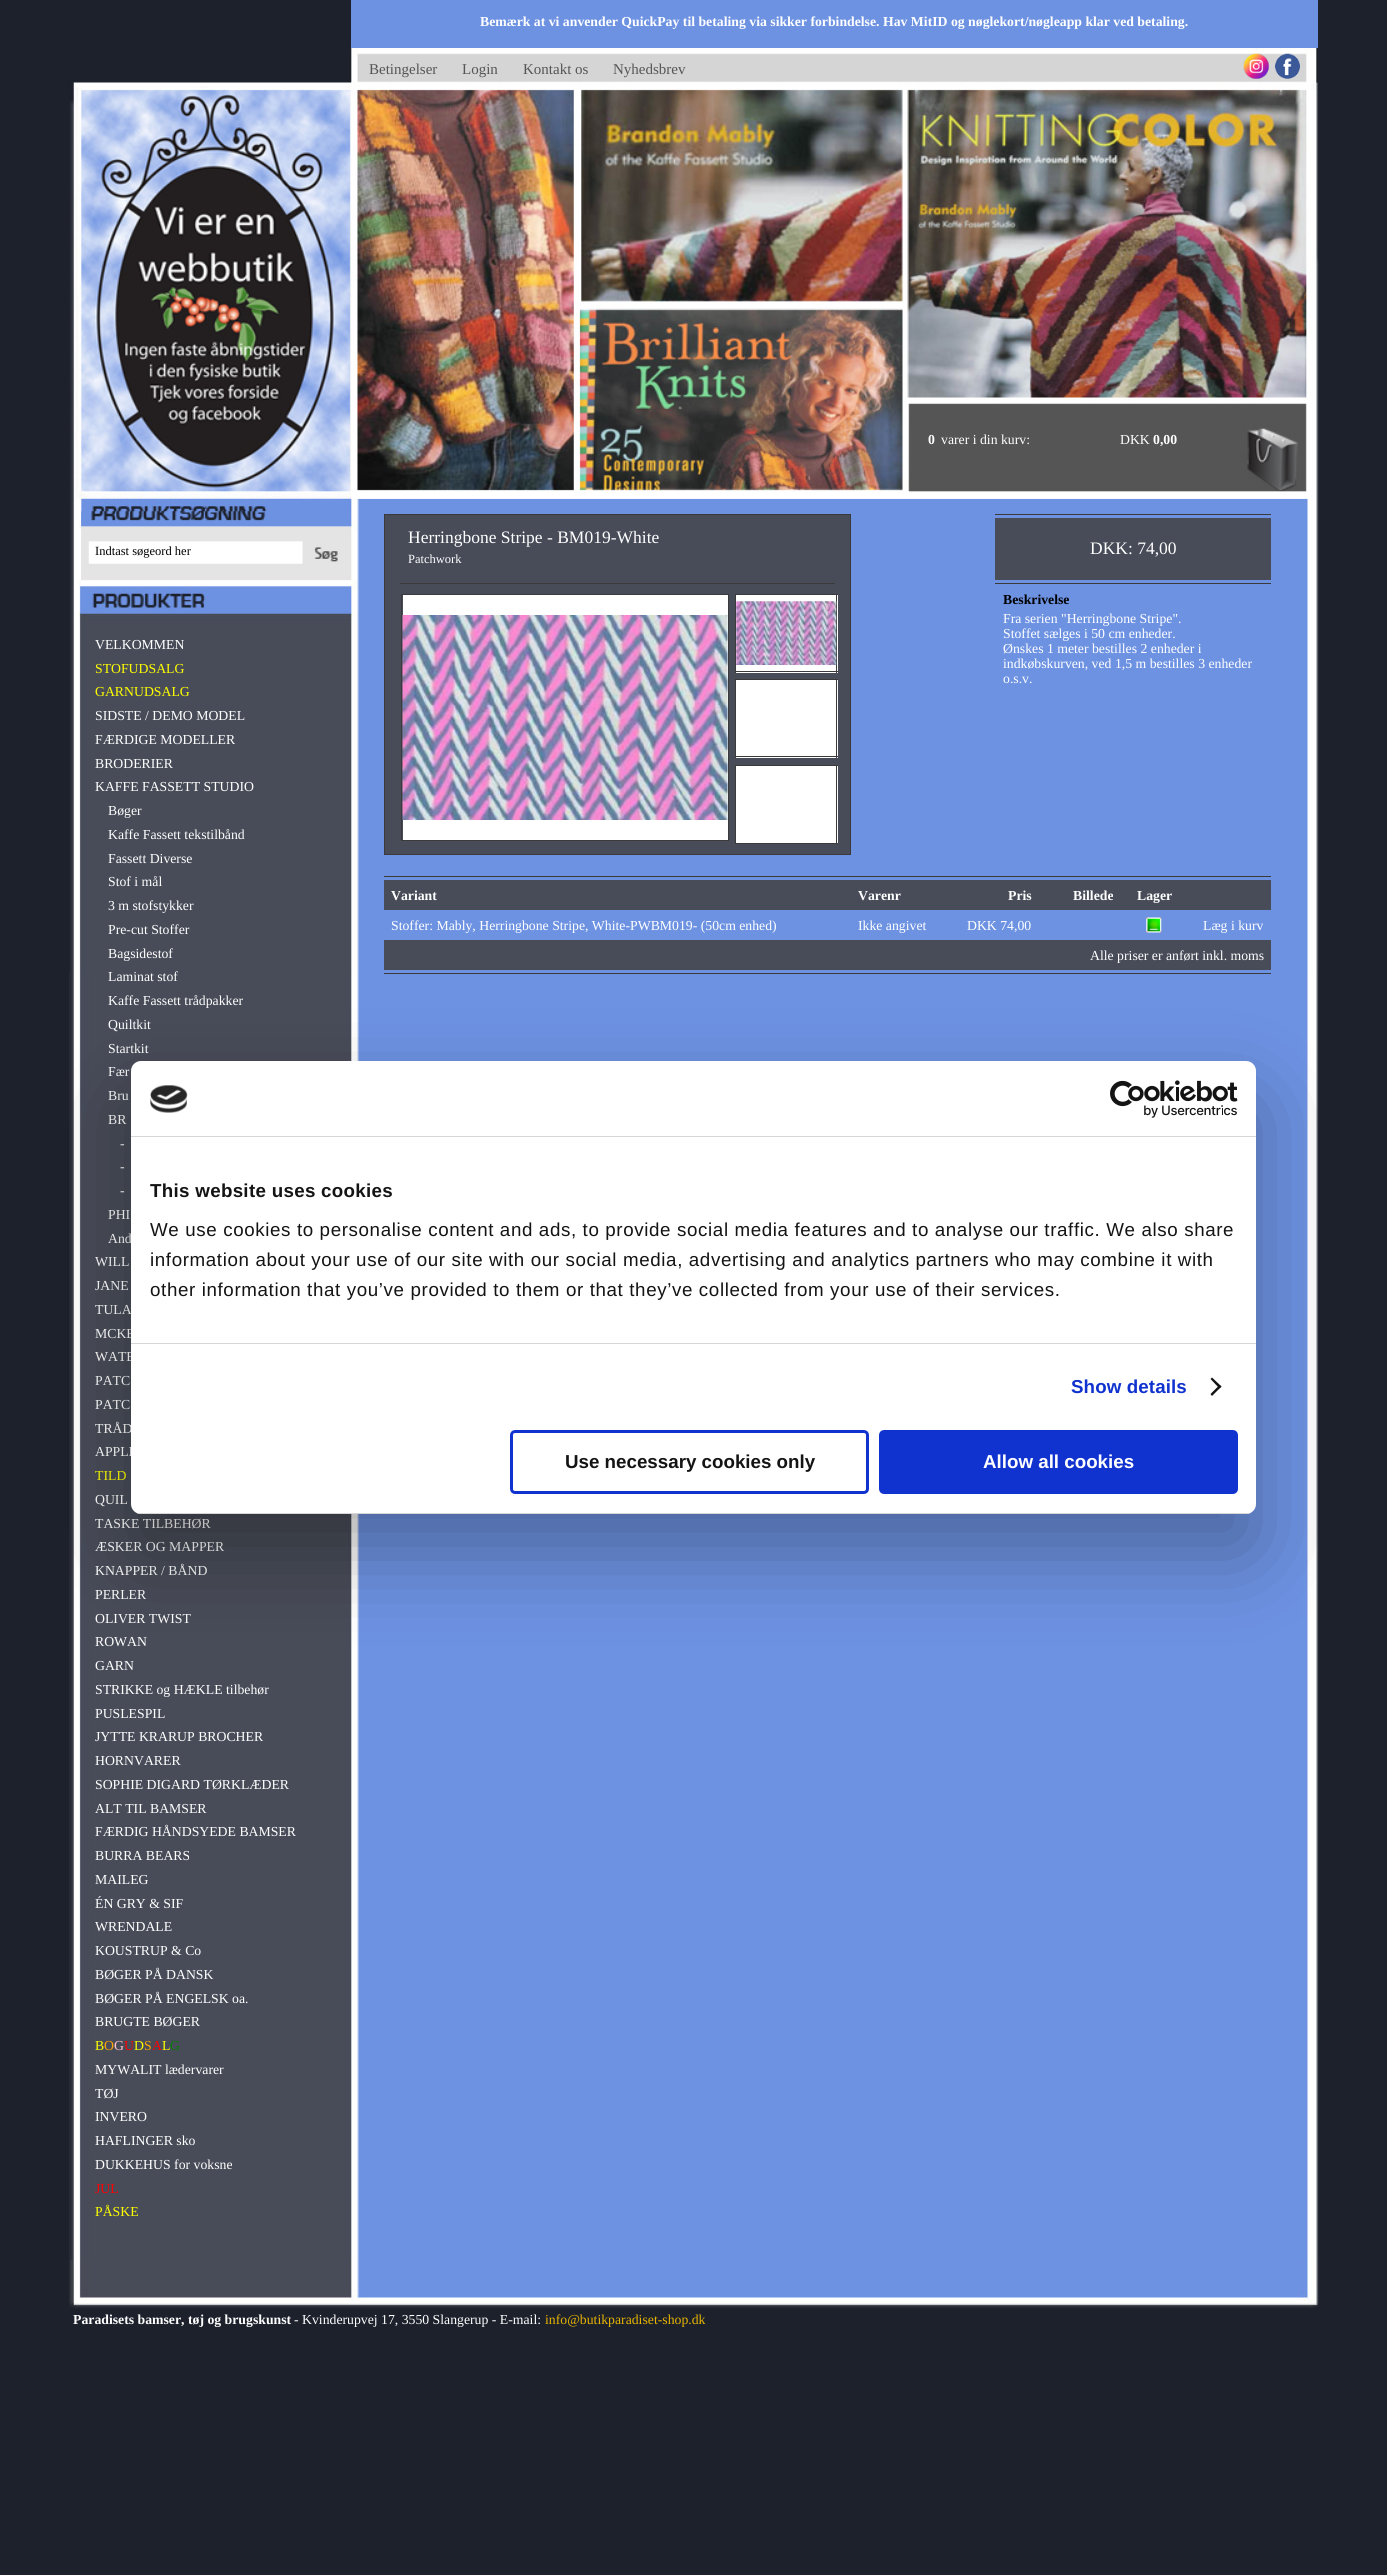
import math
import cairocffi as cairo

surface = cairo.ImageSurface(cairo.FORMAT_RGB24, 1387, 2575)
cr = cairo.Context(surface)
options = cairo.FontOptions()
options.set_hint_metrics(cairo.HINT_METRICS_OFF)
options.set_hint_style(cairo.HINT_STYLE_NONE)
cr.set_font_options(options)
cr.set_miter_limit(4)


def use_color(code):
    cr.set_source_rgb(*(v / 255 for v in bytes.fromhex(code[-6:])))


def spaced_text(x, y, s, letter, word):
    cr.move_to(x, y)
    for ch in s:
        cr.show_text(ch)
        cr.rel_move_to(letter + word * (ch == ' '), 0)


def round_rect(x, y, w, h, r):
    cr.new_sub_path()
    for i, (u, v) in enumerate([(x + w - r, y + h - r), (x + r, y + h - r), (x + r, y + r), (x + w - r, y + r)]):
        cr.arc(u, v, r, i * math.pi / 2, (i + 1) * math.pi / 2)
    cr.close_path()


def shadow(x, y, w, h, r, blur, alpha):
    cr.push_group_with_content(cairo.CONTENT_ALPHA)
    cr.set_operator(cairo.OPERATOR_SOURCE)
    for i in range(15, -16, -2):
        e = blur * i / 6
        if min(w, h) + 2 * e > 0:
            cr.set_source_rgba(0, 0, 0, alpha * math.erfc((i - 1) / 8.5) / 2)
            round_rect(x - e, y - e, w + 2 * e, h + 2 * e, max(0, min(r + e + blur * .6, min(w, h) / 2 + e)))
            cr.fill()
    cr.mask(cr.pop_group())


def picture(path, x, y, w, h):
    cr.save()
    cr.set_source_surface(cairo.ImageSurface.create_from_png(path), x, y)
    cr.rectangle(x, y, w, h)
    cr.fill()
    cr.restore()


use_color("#1d212c")
cr.paint()
picture("img1.png", 69, 0, 1250, 2260)
picture("img4.png", 69, 0, 1250, 973)
use_color("#6d92e2")
cr.rectangle(351, 0, 967, 48)
cr.fill()
cr.select_font_face("Liberation Serif", cairo.FONT_SLANT_NORMAL, cairo.FONT_WEIGHT_BOLD)
cr.set_font_size(13.75)
use_color("#ffffff")
cr.move_to(480, 26)
cr.show_text("Bemærk at vi anvender QuickPay til betaling via sikker forbindelse. Hav MitID og nøglekort/nøgleapp klar ved betaling.")
cr.select_font_face("Liberation Serif")
cr.set_font_size(15)
use_color("#555555")
cr.move_to(369, 74)
cr.show_text("Betingelser")
cr.move_to(462, 74)
cr.show_text("Login")
cr.move_to(523, 74)
cr.show_text("Kontakt os")
cr.move_to(613, 74)
cr.show_text("Nyhedsbrev")
picture("img2.png", 1243, 53, 26, 26)
picture("img3.png", 1275, 53, 25, 26)
picture("img5.png", 351, 82, 959, 417)
picture("img6.png", 908, 403, 399, 89)
cr.select_font_face("Liberation Serif", cairo.FONT_SLANT_NORMAL, cairo.FONT_WEIGHT_BOLD)
cr.set_font_size(13.75)
use_color("#ffffff")
cr.move_to(928, 444)
cr.show_text("0")
cr.select_font_face("Liberation Serif")
cr.move_to(941, 444)
cr.show_text("varer i din kurv:")
cr.move_to(1120, 444)
cr.show_text("DKK")
cr.select_font_face("Liberation Serif", cairo.FONT_SLANT_NORMAL, cairo.FONT_WEIGHT_BOLD)
cr.move_to(1153, 444)
cr.show_text("0,00")
picture("img7.png", 81, 511, 269, 79)
cr.select_font_face("Liberation Serif")
cr.set_font_size(12.5)
use_color("#000000")
cr.move_to(95, 555)
cr.show_text("Indtast søgeord her")
cr.set_font_size(13.75)
use_color("#ffffff")
cr.move_to(95, 649)
cr.show_text("VELKOMMEN")
use_color("#ffff00")
cr.move_to(95, 673)
cr.show_text("STOFUDSALG")
cr.move_to(95, 696)
cr.show_text("GARNUDSALG")
use_color("#ffffff")
cr.move_to(95, 720)
cr.show_text("SIDSTE / DEMO MODEL")
cr.move_to(95, 744)
cr.show_text("FÆRDIGE MODELLER")
cr.move_to(95, 768)
cr.show_text("BRODERIER")
cr.move_to(95, 791)
cr.show_text("KAFFE FASSETT STUDIO")
cr.move_to(108, 815)
cr.show_text("Bøger")
cr.move_to(108, 839)
cr.show_text("Kaffe Fassett tekstilbånd")
cr.move_to(108, 863)
cr.show_text("Fassett Diverse")
cr.move_to(108, 886)
cr.show_text("Stof i mål")
cr.move_to(108, 910)
cr.show_text("3 m stofstykker")
cr.move_to(108, 934)
cr.show_text("Pre-cut Stoffer")
cr.move_to(108, 958)
cr.show_text("Bagsidestof")
cr.move_to(108, 981)
cr.show_text("Laminat stof")
cr.move_to(108, 1005)
cr.show_text("Kaffe Fassett trådpakker")
cr.move_to(108, 1029)
cr.show_text("Quiltkit")
cr.move_to(108, 1053)
cr.show_text("Startkit")
cr.move_to(108, 1076)
cr.show_text("Fær")
cr.move_to(108, 1100)
cr.show_text("Bru")
cr.move_to(108, 1124)
cr.show_text("BR")
cr.move_to(120, 1148)
cr.show_text("-")
cr.move_to(120, 1171)
cr.show_text("-")
cr.move_to(120, 1195)
cr.show_text("-")
cr.move_to(108, 1219)
cr.show_text("PHI")
cr.move_to(108, 1243)
cr.show_text("And")
cr.move_to(95, 1266)
cr.show_text("WILL")
cr.move_to(95, 1290)
cr.show_text("JANE")
cr.move_to(95, 1314)
cr.show_text("TULA")
cr.move_to(95, 1338)
cr.show_text("MCKE")
cr.move_to(95, 1361)
cr.show_text("WATE")
cr.move_to(95, 1385)
cr.show_text("PATC")
cr.move_to(95, 1409)
cr.show_text("PATC")
cr.move_to(95, 1433)
cr.show_text("TRÅD")
cr.move_to(95, 1456)
cr.show_text("APPLI")
use_color("#ffff00")
cr.move_to(95, 1480)
cr.show_text("TILD")
use_color("#ffffff")
cr.move_to(95, 1504)
cr.show_text("QUIL")
cr.move_to(95, 1528)
cr.show_text("TASKE TILBEHØR")
cr.move_to(95, 1551)
cr.show_text("ÆSKER OG MAPPER")
cr.move_to(95, 1575)
cr.show_text("KNAPPER / BÅND")
cr.move_to(95, 1599)
cr.show_text("PERLER")
cr.move_to(95, 1623)
cr.show_text("OLIVER TWIST")
cr.move_to(95, 1646)
cr.show_text("ROWAN")
cr.move_to(95, 1670)
cr.show_text("GARN")
cr.move_to(95, 1694)
cr.show_text("STRIKKE og HÆKLE tilbehør")
cr.move_to(95, 1718)
cr.show_text("PUSLESPIL")
cr.move_to(95, 1741)
cr.show_text("JYTTE KRARUP BROCHER")
cr.move_to(95, 1765)
cr.show_text("HORNVARER")
cr.move_to(95, 1789)
cr.show_text("SOPHIE DIGARD TØRKLÆDER")
cr.move_to(95, 1813)
cr.show_text("ALT TIL BAMSER")
cr.move_to(95, 1836)
cr.show_text("FÆRDIG HÅNDSYEDE BAMSER")
cr.move_to(95, 1860)
cr.show_text("BURRA BEARS")
cr.move_to(95, 1884)
cr.show_text("MAILEG")
cr.move_to(95, 1908)
cr.show_text("ÉN GRY & SIF")
cr.move_to(95, 1931)
cr.show_text("WRENDALE")
cr.move_to(95, 1955)
cr.show_text("KOUSTRUP & Co")
cr.move_to(95, 1979)
cr.show_text("BØGER PÅ DANSK")
cr.move_to(95, 2003)
cr.show_text("BØGER PÅ ENGELSK oa.")
cr.move_to(95, 2026)
cr.show_text("BRUGTE BØGER")
use_color("#ffff00")
cr.move_to(95, 2050)
cr.show_text("B")
use_color("#ffa500")
cr.move_to(104, 2050)
cr.show_text("O")
use_color("#ffc0cb")
cr.move_to(114, 2050)
cr.show_text("G")
use_color("#ff0000")
cr.move_to(124, 2050)
cr.show_text("U")
use_color("#ffff00")
cr.move_to(134, 2050)
cr.show_text("D")
use_color("#ffa500")
cr.move_to(144, 2050)
cr.show_text("S")
use_color("#ff0000")
cr.move_to(152, 2050)
cr.show_text("A")
use_color("#ffff00")
cr.move_to(162, 2050)
cr.show_text("L")
use_color("#008000")
cr.move_to(170, 2050)
cr.show_text("G")
use_color("#ffffff")
cr.move_to(95, 2074)
cr.show_text("MYWALIT lædervarer")
cr.move_to(95, 2098)
cr.show_text("TØJ")
cr.move_to(95, 2121)
cr.show_text("INVERO")
cr.move_to(95, 2145)
cr.show_text("HAFLINGER sko")
cr.move_to(95, 2169)
cr.show_text("DUKKEHUS for voksne")
use_color("#ff0000")
cr.move_to(95, 2193)
cr.show_text("JUL")
use_color("#ffff00")
cr.move_to(95, 2216)
cr.show_text("PÅSKE")
use_color("#484c59")
cr.rectangle(384.5, 514.5, 466, 340)
cr.fill_preserve()
use_color("#3a3a3a")
cr.set_line_width(1)
cr.stroke()
cr.set_font_size(17.5)
use_color("#ffffff")
cr.move_to(408, 543)
cr.show_text("Herringbone Stripe - BM019-White")
use_color("#3a3a3a")
cr.rectangle(400, 583, 435, 1)
cr.fill()
cr.set_font_size(12.5)
use_color("#ffffff")
cr.move_to(408, 563)
cr.show_text("Patchwork")
cr.rectangle(403, 595, 325, 245)
cr.fill()
use_color("#3a3a3a")
cr.rectangle(401, 594, 328, 1)
cr.fill()
cr.rectangle(728, 594, 1, 247)
cr.fill()
cr.rectangle(401, 840, 328, 1)
cr.fill()
cr.rectangle(401, 594, 1, 247)
cr.fill()
picture("img8.png", 402, 615, 326, 205)
use_color("#ffffff")
cr.rectangle(736, 595, 102, 78)
cr.fill()
use_color("#3a3a3a")
cr.rectangle(735, 594, 103, 1)
cr.fill()
cr.rectangle(836, 594, 1, 79)
cr.fill()
cr.rectangle(735, 671, 103, 1)
cr.fill()
cr.rectangle(735, 594, 1, 79)
cr.fill()
picture("img9.png", 736, 601, 101, 64)
use_color("#ffffff")
cr.rectangle(736, 680, 102, 78)
cr.fill()
use_color("#3a3a3a")
cr.rectangle(735, 679, 103, 1)
cr.fill()
cr.rectangle(836, 679, 1, 79)
cr.fill()
cr.rectangle(735, 756, 103, 1)
cr.fill()
cr.rectangle(735, 679, 1, 79)
cr.fill()
use_color("#ffffff")
cr.rectangle(736, 766, 102, 77)
cr.fill()
use_color("#3a3a3a")
cr.rectangle(735, 765, 103, 1)
cr.fill()
cr.rectangle(836, 765, 1, 79)
cr.fill()
cr.rectangle(735, 843, 103, 1)
cr.fill()
cr.rectangle(735, 765, 1, 79)
cr.fill()
cr.rectangle(995, 514, 276, 1)
cr.fill()
cr.rectangle(995, 583, 276, 1)
cr.fill()
use_color("#484c59")
cr.rectangle(995, 518, 276, 62)
cr.fill()
cr.set_font_size(17.5)
use_color("#ffffff")
cr.move_to(1090, 554)
cr.show_text("DKK: 74,00")
cr.select_font_face("Liberation Serif", cairo.FONT_SLANT_NORMAL, cairo.FONT_WEIGHT_BOLD)
cr.set_font_size(13.75)
use_color("#000000")
cr.move_to(1003, 604)
cr.show_text("Beskrivelse")
cr.select_font_face("Liberation Serif")
use_color("#ffffff")
cr.move_to(1003, 623)
cr.show_text("Fra serien \"Herringbone Stripe\".")
cr.move_to(1003, 638)
cr.show_text("Stoffet sælges i 50 cm enheder.")
cr.move_to(1003, 653)
cr.show_text("Ønskes 1 meter bestilles 2 enheder i")
cr.move_to(1003, 668)
cr.show_text("indkøbskurven, ved 1,5 m bestilles 3 enheder")
cr.move_to(1003, 683)
cr.show_text("o.s.v.")
use_color("#3a3a3a")
cr.rectangle(384, 876, 887, 1)
cr.fill()
use_color("#484c59")
cr.rectangle(384, 880, 887, 30)
cr.fill()
cr.select_font_face("Liberation Serif", cairo.FONT_SLANT_NORMAL, cairo.FONT_WEIGHT_BOLD)
use_color("#ffffff")
cr.move_to(391, 900)
cr.show_text("Variant")
cr.move_to(858, 900)
cr.show_text("Varenr")
cr.move_to(1008, 900)
cr.show_text("Pris")
cr.move_to(1073, 900)
cr.show_text("Billede")
cr.move_to(1137, 900)
cr.show_text("Lager")
cr.select_font_face("Liberation Serif")
cr.move_to(391, 930)
cr.show_text("Stoffer: Mably, Herringbone Stripe, White-PWBM019- (50cm enhed)")
cr.move_to(858, 930)
cr.show_text("Ikke angivet")
cr.move_to(967, 930)
cr.show_text("DKK 74,00")
picture("img10.png", 1146, 917, 16, 16)
cr.move_to(1203, 930)
cr.show_text("Læg i kurv")
use_color("#484c59")
cr.rectangle(384, 940, 887, 30)
cr.fill()
use_color("#ffffff")
cr.move_to(1090, 960)
cr.show_text("Alle priser er anført inkl. moms")
use_color("#3a3a3a")
cr.rectangle(384, 973, 887, 1)
cr.fill()
picture("img11.png", 69, 2260, 1250, 49)
cr.select_font_face("Liberation Serif", cairo.FONT_SLANT_NORMAL, cairo.FONT_WEIGHT_BOLD)
use_color("#ffffff")
cr.move_to(73, 2324)
cr.show_text("Paradisets bamser, tøj og brugskunst")
cr.select_font_face("Liberation Serif")
cr.move_to(294, 2324)
cr.show_text("- Kvinderupvej 17, 3550 Slangerup - E-mail:")
use_color("#e7b402")
cr.move_to(545, 2324)
cr.show_text("info@butikparadiset-shop.dk")
use_color("#000000")
shadow(131, 1101, 1125, 453, 10, 42.5, 0.3)
use_color("#ffffff")
round_rect(131, 1061, 1125, 453, 10)
cr.fill()
use_color("#d6d6d6")
cr.rectangle(131, 1136, 1125, 1)
cr.fill()
picture("img12.png", 150, 1085, 38, 28)
picture("img13.png", 1110, 1080, 128, 38)
cr.rectangle(131, 1343, 1125, 1)
cr.fill()
cr.select_font_face("Liberation Sans", cairo.FONT_SLANT_NORMAL, cairo.FONT_WEIGHT_BOLD)
cr.set_font_size(18.75)
use_color("#141414")
spaced_text(150, 1197, "This website uses cookies", 0.3, 0)
cr.select_font_face("Liberation Sans")
spaced_text(150, 1236, "We use cookies to personalise content and ads, to provide social media features and to analyse our traffic. We also share", 0.62, 0)
spaced_text(150, 1266, "information about your use of our site with our social media, advertising and analytics partners who may combine it with", 0.62, 0)
spaced_text(150, 1296, "other information that you’ve provided to them or that they’ve collected from your use of their services.", 0.62, 0)
cr.select_font_face("Liberation Sans", cairo.FONT_SLANT_NORMAL, cairo.FONT_WEIGHT_BOLD)
use_color("#1032cf")
spaced_text(1071, 1393, "Show details", 0.1, 0)
use_color("#141414")
cr.new_path()
cr.move_to(1212, 1377.5)
cr.line_to(1221.5, 1386.5)
cr.line_to(1219.5, 1388.5)
cr.line_to(1210.5, 1379)
cr.close_path()
cr.fill()
cr.new_path()
cr.move_to(1219.5, 1385)
cr.line_to(1221.5, 1386.5)
cr.line_to(1212, 1396)
cr.line_to(1210.5, 1394)
cr.close_path()
cr.fill()
cr.save()
round_rect(131, 1061, 1125, 453, 10)
cr.clip()
use_color("#d6d6d6")
cr.rectangle(131, 1513, 1125, 1)
cr.fill()
cr.restore()
round_rect(511.5, 1431.5, 356, 61, 3.5)
use_color("#1032cf")
cr.set_line_width(3)
cr.stroke()
use_color("#141414")
cr.move_to(565, 1468)
cr.show_text("Use necessary cookies only")
use_color("#1032cf")
round_rect(880.5, 1431.5, 356, 61, 3.5)
cr.fill_preserve()
cr.stroke()
use_color("#ffffff")
cr.move_to(983, 1468)
cr.show_text("Allow all cookies")
surface.write_to_png("result.png")
